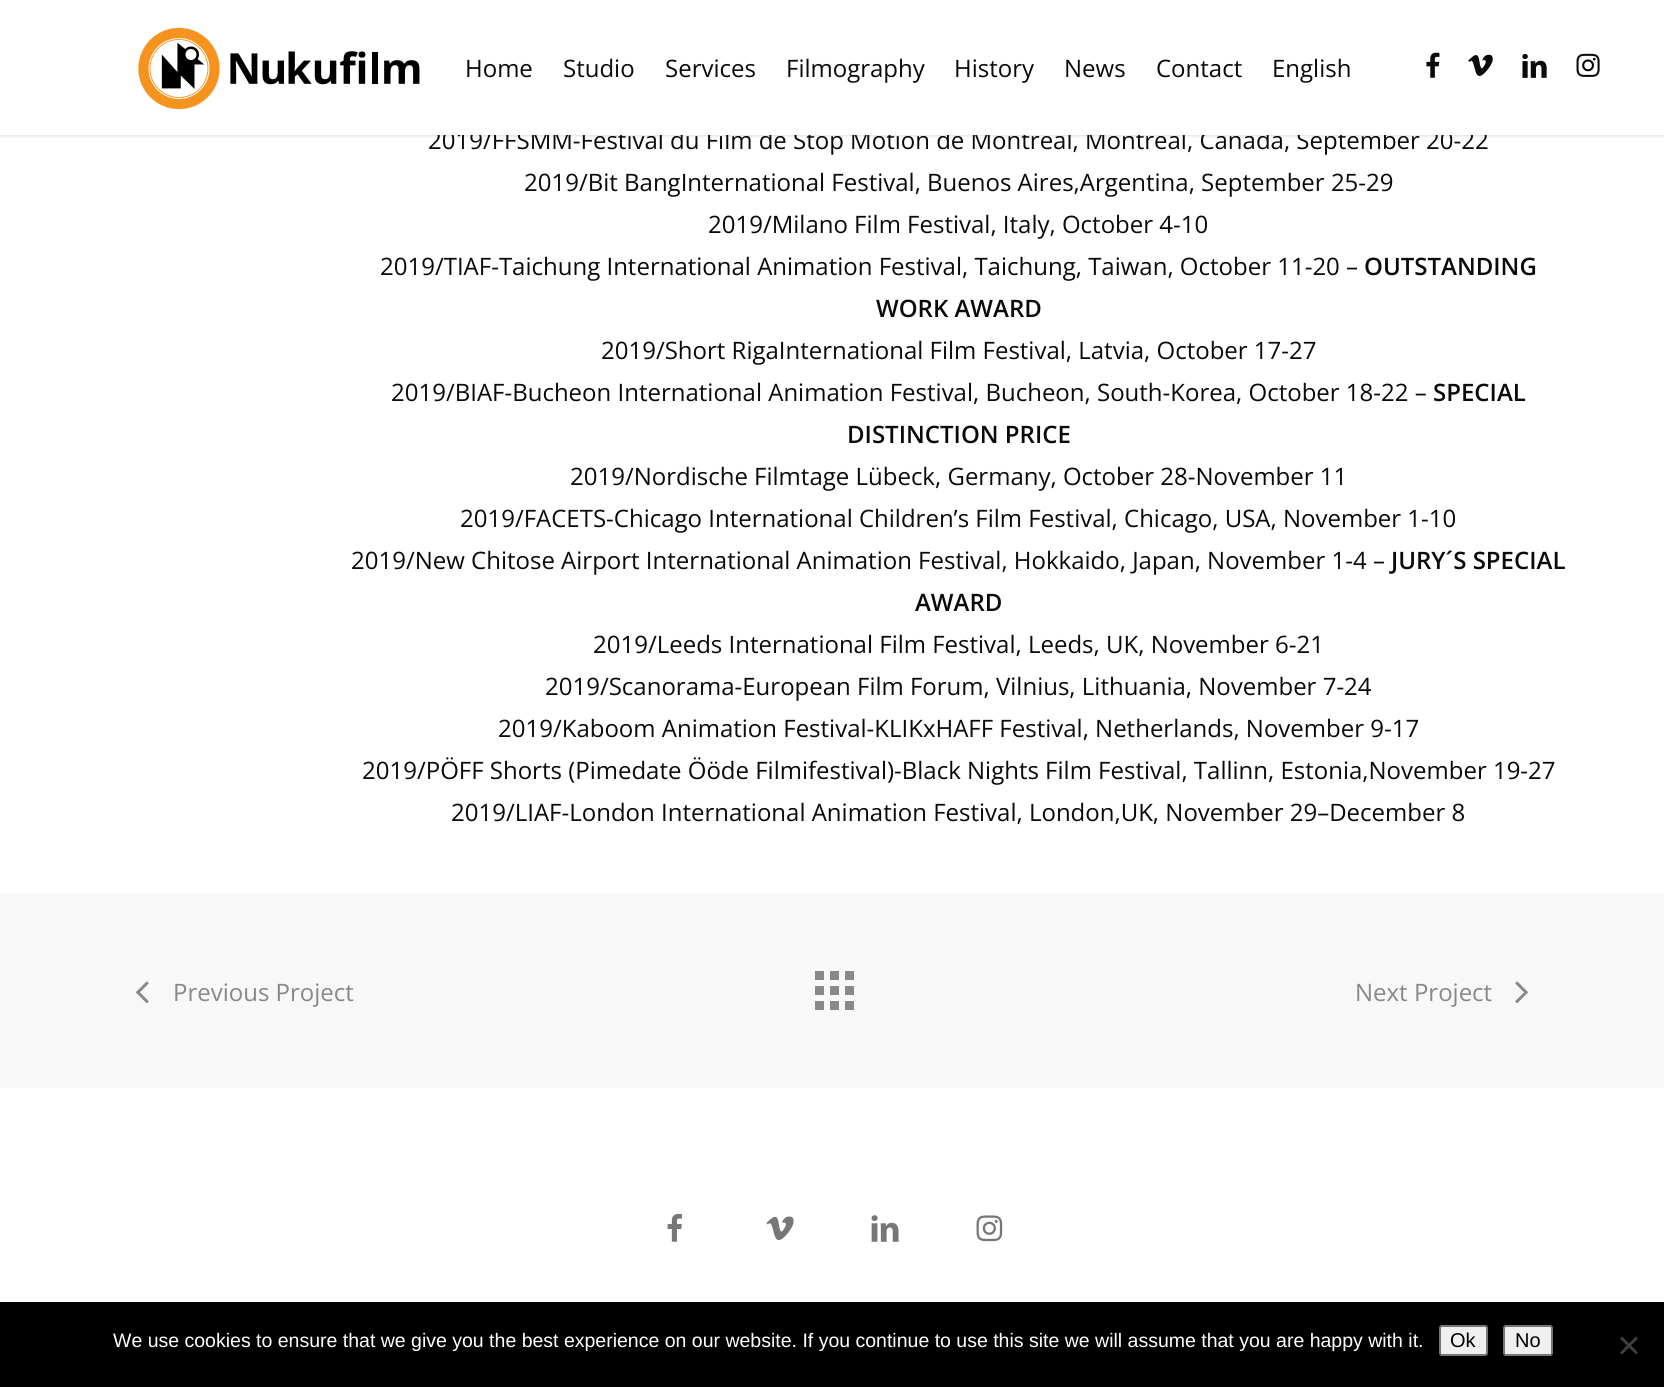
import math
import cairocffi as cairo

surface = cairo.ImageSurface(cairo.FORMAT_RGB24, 1664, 1387)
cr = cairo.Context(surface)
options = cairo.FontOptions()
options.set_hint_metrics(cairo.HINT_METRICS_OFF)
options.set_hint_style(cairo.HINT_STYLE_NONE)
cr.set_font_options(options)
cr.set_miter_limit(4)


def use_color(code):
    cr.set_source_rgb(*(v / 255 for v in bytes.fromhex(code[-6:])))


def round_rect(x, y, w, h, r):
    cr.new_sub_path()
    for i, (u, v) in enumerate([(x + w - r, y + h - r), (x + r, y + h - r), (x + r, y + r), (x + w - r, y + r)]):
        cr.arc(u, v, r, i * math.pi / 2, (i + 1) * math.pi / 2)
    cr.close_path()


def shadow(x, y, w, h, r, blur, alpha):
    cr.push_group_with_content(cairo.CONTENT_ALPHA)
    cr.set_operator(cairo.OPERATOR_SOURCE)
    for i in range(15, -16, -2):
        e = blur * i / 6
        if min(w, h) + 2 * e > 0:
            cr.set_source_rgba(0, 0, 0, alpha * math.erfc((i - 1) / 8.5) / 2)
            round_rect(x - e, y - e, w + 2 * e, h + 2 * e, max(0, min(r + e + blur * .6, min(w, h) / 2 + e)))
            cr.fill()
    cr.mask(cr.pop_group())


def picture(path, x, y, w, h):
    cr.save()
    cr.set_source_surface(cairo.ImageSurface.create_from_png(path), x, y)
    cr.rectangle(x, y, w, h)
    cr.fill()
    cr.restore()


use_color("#ffffff")
cr.paint()
use_color("#000000")
shadow(0, 0, 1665, 135, 0, 2, 0.22)
cr.select_font_face("Open Sans")
cr.set_font_size(24)
use_color("#0a0a0a")
cr.move_to(428, 149)
cr.show_text("2019/FFSMM-Festival du Film de Stop Motion de Montréal, Montreal, Canada, September 20-22")
use_color("#ffffff")
cr.rectangle(0, 0, 1664, 135)
cr.fill()
picture("img1.png", 138, 27, 282, 83)
use_color("#0a0a0a")
cr.move_to(465, 77)
cr.show_text("Home")
cr.move_to(563, 77)
cr.show_text("Studio")
cr.move_to(665, 77)
cr.show_text("Services")
cr.move_to(786, 77)
cr.show_text("Filmography")
cr.move_to(954, 77)
cr.show_text("History")
cr.move_to(1064, 77)
cr.show_text("News")
cr.move_to(1156, 77)
cr.show_text("Contact")
cr.move_to(1272, 77)
cr.show_text("English")
picture("img2.png", 1426, 52, 14, 26)
picture("img3.png", 1468, 54, 25, 22)
picture("img4.png", 1522, 53, 25, 25)
picture("img5.png", 1576, 53, 24, 24)
cr.move_to(524, 191)
cr.show_text("2019/Bit BangInternational Festival, Buenos Aires,Argentina, September 25-29")
cr.move_to(708, 233)
cr.show_text("2019/Milano Film Festival, Italy, October 4-10")
cr.move_to(380, 275)
cr.show_text("2019/TIAF-Taichung International Animation Festival, Taichung, Taiwan, October 11-20 –")
cr.select_font_face("Open Sans SemiBold")
cr.move_to(1364, 275)
cr.show_text("OUTSTANDING")
cr.move_to(876, 317)
cr.show_text("WORK AWARD")
cr.select_font_face("Open Sans")
cr.move_to(601, 359)
cr.show_text("2019/Short RigaInternational Film Festival, Latvia, October 17-27")
cr.move_to(391, 401)
cr.show_text("2019/BIAF-Bucheon International Animation Festival, Bucheon, South-Korea, October 18-22 –")
cr.select_font_face("Open Sans SemiBold")
cr.move_to(1433, 401)
cr.show_text("SPECIAL")
cr.move_to(847, 443)
cr.show_text("DISTINCTION PRICE")
cr.select_font_face("Open Sans")
cr.move_to(570, 485)
cr.show_text("2019/Nordische Filmtage Lübeck, Germany, October 28-November 11")
cr.move_to(460, 527)
cr.show_text("2019/FACETS-Chicago International Children’s Film Festival, Chicago, USA, November 1-10")
cr.move_to(351, 569)
cr.show_text("2019/New Chitose Airport International Animation Festival, Hokkaido, Japan, November 1-4 –")
cr.select_font_face("Open Sans SemiBold")
cr.move_to(1391, 569)
cr.show_text("JURY´S SPECIAL")
cr.move_to(915, 611)
cr.show_text("AWARD")
cr.select_font_face("Open Sans")
cr.move_to(593, 653)
cr.show_text("2019/Leeds International Film Festival, Leeds, UK, November 6-21")
cr.move_to(545, 695)
cr.show_text("2019/Scanorama-European Film Forum, Vilnius, Lithuania, November 7-24")
cr.move_to(498, 737)
cr.show_text("2019/Kaboom Animation Festival-KLIKxHAFF Festival, Netherlands, November 9-17")
cr.move_to(362, 779)
cr.show_text("2019/PÖFF Shorts (Pimedate Ööde Filmifestival)-Black Nights Film Festival, Tallinn, Estonia,November 19-27")
cr.move_to(451, 821)
cr.show_text("2019/LIAF-London International Animation Festival, London,UK, November 29–December 8")
use_color("#f8f8f8")
cr.rectangle(0, 893, 1664, 195)
cr.fill()
use_color("#888888")
cr.rectangle(845, 1001, 9, 9)
cr.fill()
cr.rectangle(830, 1001, 9, 9)
cr.fill()
cr.rectangle(815, 971, 9, 9)
cr.fill()
cr.rectangle(830, 971, 9, 9)
cr.fill()
cr.rectangle(845, 971, 9, 9)
cr.fill()
cr.rectangle(845, 986, 9, 9)
cr.fill()
cr.rectangle(815, 1001, 9, 9)
cr.fill()
cr.rectangle(815, 986, 9, 9)
cr.fill()
cr.rectangle(830, 986, 9, 9)
cr.fill()
picture("img6.png", 136, 981, 13, 23)
cr.move_to(173, 1001)
cr.show_text("Previous Project")
cr.move_to(1355, 1001)
cr.show_text("Next Project")
picture("img7.png", 1515, 981, 13, 23)
picture("img8.png", 667, 1213, 16, 29)
picture("img9.png", 766, 1216, 28, 25)
picture("img10.png", 871, 1215, 28, 27)
picture("img11.png", 976, 1215, 27, 27)
use_color("#000000")
cr.rectangle(0, 1302, 1664, 85)
cr.fill()
cr.select_font_face("Liberation Sans")
cr.set_font_size(19.5)
use_color("#ffffff")
cr.move_to(113, 1347)
cr.show_text("We use cookies to ensure that we give you the best experience on our website. If you continue to use this site we will assume that you are happy with it.")
use_color("#efefef")
round_rect(1440, 1326, 47, 29, 2)
cr.fill_preserve()
use_color("#767676")
cr.stroke()
cr.set_font_size(20)
use_color("#000000")
cr.move_to(1450, 1347)
cr.show_text("Ok")
use_color("#efefef")
round_rect(1504, 1326, 48, 29, 2)
cr.fill_preserve()
use_color("#767676")
cr.stroke()
use_color("#000000")
cr.move_to(1515, 1347)
cr.show_text("No")
use_color("#404040")
cr.new_path()
cr.move_to(1636, 1336.5)
cr.line_to(1638, 1338.5)
cr.line_to(1622, 1354.5)
cr.line_to(1620, 1352.5)
cr.close_path()
cr.fill()
cr.new_path()
cr.move_to(1620, 1338.5)
cr.line_to(1622, 1336.5)
cr.line_to(1638, 1352.5)
cr.line_to(1636, 1354.5)
cr.close_path()
cr.fill()
surface.write_to_png("result.png")
